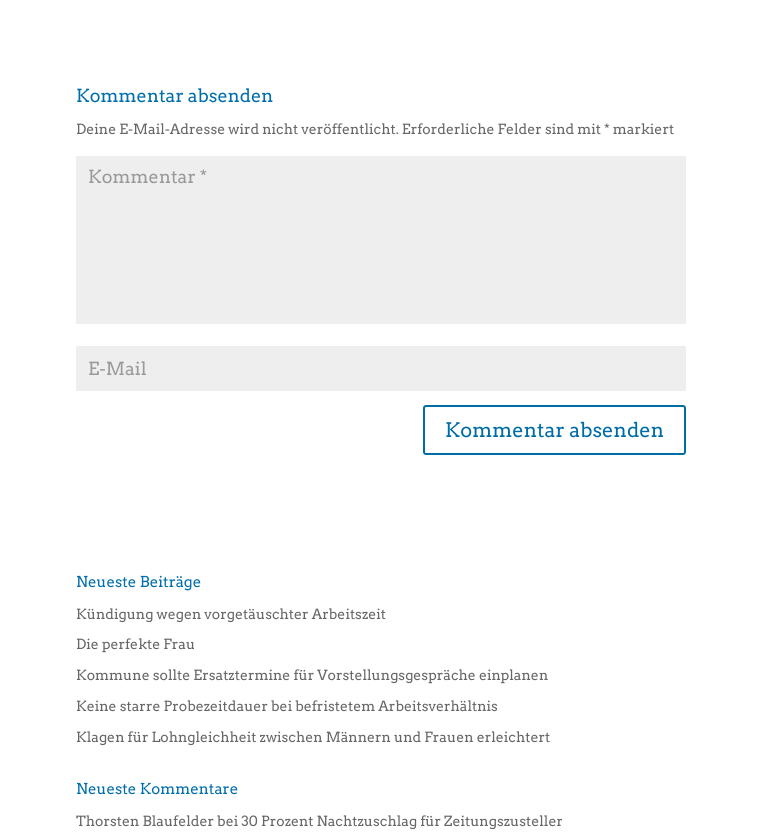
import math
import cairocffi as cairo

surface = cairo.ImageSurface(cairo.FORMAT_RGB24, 762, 835)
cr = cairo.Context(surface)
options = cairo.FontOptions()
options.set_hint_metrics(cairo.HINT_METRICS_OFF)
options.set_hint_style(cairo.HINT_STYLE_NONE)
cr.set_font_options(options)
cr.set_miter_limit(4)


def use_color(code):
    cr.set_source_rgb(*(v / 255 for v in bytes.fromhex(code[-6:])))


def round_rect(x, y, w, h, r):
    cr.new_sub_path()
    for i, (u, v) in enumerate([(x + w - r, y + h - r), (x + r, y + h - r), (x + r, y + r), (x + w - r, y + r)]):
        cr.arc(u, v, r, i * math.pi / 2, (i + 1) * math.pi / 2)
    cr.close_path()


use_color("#ffffff")
cr.paint()
cr.select_font_face("Arvo")
cr.set_font_size(18)
use_color("#006eab")
cr.move_to(76, 102)
cr.show_text("Kommentar absenden")
cr.set_font_size(14)
use_color("#666666")
cr.move_to(76, 134)
cr.show_text("Deine E-Mail-Adresse wird nicht veröffentlicht. Erforderliche Felder sind mit * markiert")
use_color("#eeeeee")
cr.rectangle(76, 156, 610, 168)
cr.fill()
cr.set_font_size(18)
use_color("#999999")
cr.move_to(88, 183)
cr.show_text("Kommentar *")
use_color("#eeeeee")
cr.rectangle(76, 346, 610, 45)
cr.fill()
use_color("#999999")
cr.move_to(88, 375)
cr.show_text("E-Mail")
round_rect(424, 406, 261, 48, 2)
use_color("#006ca5")
cr.stroke()
cr.set_font_size(20)
cr.move_to(445, 437)
cr.show_text("Kommentar absenden")
cr.set_font_size(15)
use_color("#006eab")
cr.move_to(76, 587)
cr.show_text("Neueste Beiträge")
cr.set_font_size(14)
use_color("#666666")
cr.move_to(76, 619)
cr.show_text("Kündigung wegen vorgetäuschter Arbeitszeit")
cr.move_to(76, 649)
cr.show_text("Die perfekte Frau")
cr.move_to(76, 680)
cr.show_text("Kommune sollte Ersatztermine für Vorstellungsgespräche einplanen")
cr.move_to(76, 711)
cr.show_text("Keine starre Probezeitdauer bei befristetem Arbeitsverhältnis")
cr.move_to(76, 742)
cr.show_text("Klagen für Lohngleichheit zwischen Männern und Frauen erleichtert")
cr.set_font_size(15)
use_color("#006eab")
cr.move_to(76, 794)
cr.show_text("Neueste Kommentare")
cr.set_font_size(14)
use_color("#666666")
cr.move_to(76, 826)
cr.show_text("Thorsten Blaufelder bei 30 Prozent Nachtzuschlag für Zeitungszusteller")
surface.write_to_png("result.png")
